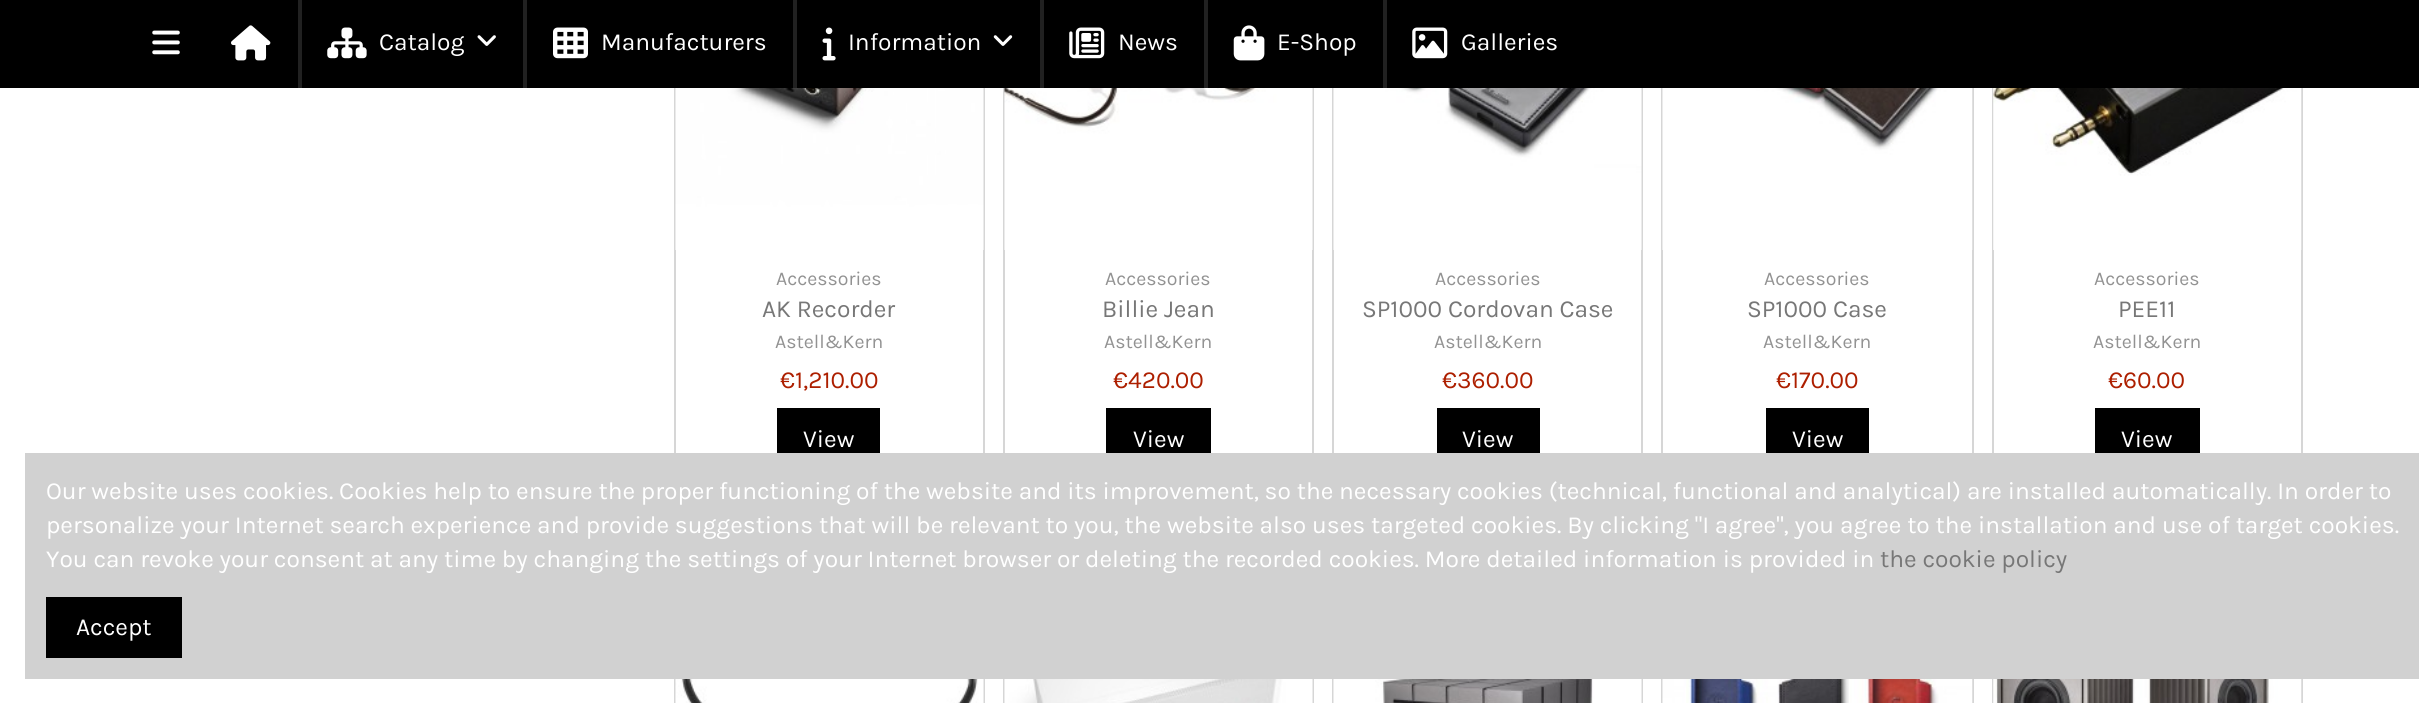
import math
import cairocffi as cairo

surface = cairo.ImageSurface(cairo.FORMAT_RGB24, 2419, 703)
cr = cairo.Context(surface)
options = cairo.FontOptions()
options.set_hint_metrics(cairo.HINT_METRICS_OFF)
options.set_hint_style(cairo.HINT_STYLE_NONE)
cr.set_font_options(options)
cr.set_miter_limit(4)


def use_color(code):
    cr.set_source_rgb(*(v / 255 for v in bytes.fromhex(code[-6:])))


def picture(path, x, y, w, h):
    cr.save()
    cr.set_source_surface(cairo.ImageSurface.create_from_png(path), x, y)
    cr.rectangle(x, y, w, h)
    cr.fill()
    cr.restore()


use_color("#ffffff")
cr.paint()
cr.rectangle(675, -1, 309, 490)
use_color("#d6d6d6")
cr.stroke()
cr.rectangle(1004, -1, 309, 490)
cr.stroke()
cr.rectangle(1333, -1, 309, 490)
cr.stroke()
cr.rectangle(1662, -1, 311, 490)
cr.stroke()
cr.rectangle(1993, -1, 309, 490)
cr.stroke()
use_color("#000000")
cr.rectangle(0, 0, 2419, 88)
cr.fill()
picture("img1.png", 152, 30, 28, 25)
picture("img2.png", 231, 25, 40, 36)
use_color("#212121")
cr.rectangle(298, 0, 4, 88)
cr.fill()
picture("img3.png", 327, 27, 40, 32)
cr.select_font_face("Karla")
cr.set_font_size(24.5)
use_color("#ffffff")
cr.move_to(379, 50)
cr.show_text("Catalog")
picture("img4.png", 477, 35, 19, 11)
use_color("#212121")
cr.rectangle(523, 0, 4, 88)
cr.fill()
picture("img5.png", 553, 27, 35, 32)
use_color("#ffffff")
cr.move_to(601, 50)
cr.show_text("Manufacturers")
use_color("#212121")
cr.rectangle(793, 0, 4, 88)
cr.fill()
picture("img6.png", 822, 27, 14, 34)
use_color("#ffffff")
cr.move_to(848, 50)
cr.show_text("Information")
picture("img7.png", 993, 35, 20, 11)
use_color("#212121")
cr.rectangle(1040, 0, 4, 88)
cr.fill()
picture("img8.png", 1069, 27, 36, 32)
use_color("#ffffff")
cr.move_to(1118, 50)
cr.show_text("News")
use_color("#212121")
cr.rectangle(1204, 0, 4, 88)
cr.fill()
picture("img9.png", 1233, 25, 32, 36)
use_color("#ffffff")
cr.move_to(1277, 50)
cr.show_text("E-Shop")
use_color("#212121")
cr.rectangle(1383, 0, 4, 88)
cr.fill()
picture("img10.png", 1412, 27, 36, 32)
use_color("#ffffff")
cr.move_to(1461, 50)
cr.show_text("Galleries")
picture("img11.png", 675, 88, 309, 162)
cr.set_font_size(19.5)
use_color("#929292")
cr.move_to(776, 285)
cr.show_text("Accessories")
cr.set_font_size(24.5)
use_color("#777777")
cr.move_to(762, 317)
cr.show_text("AK Recorder")
cr.set_font_size(19.5)
use_color("#929292")
cr.move_to(775, 348)
cr.show_text("Astell&Kern")
cr.set_font_size(24.5)
use_color("#ad1f00")
cr.move_to(780, 388)
cr.show_text("€1,210.00")
use_color("#000000")
cr.rectangle(777, 408, 103, 45)
cr.fill()
use_color("#ffffff")
cr.move_to(803, 447)
cr.show_text("View")
picture("img12.png", 1004, 88, 309, 162)
cr.set_font_size(19.5)
use_color("#929292")
cr.move_to(1105, 285)
cr.show_text("Accessories")
cr.set_font_size(24.5)
use_color("#777777")
cr.move_to(1102, 317)
cr.show_text("Billie Jean")
cr.set_font_size(19.5)
use_color("#929292")
cr.move_to(1104, 348)
cr.show_text("Astell&Kern")
cr.set_font_size(24.5)
use_color("#ad1f00")
cr.move_to(1113, 388)
cr.show_text("€420.00")
use_color("#000000")
cr.rectangle(1106, 408, 105, 45)
cr.fill()
use_color("#ffffff")
cr.move_to(1133, 447)
cr.show_text("View")
picture("img13.png", 1333, 88, 309, 162)
cr.set_font_size(19.5)
use_color("#929292")
cr.move_to(1435, 285)
cr.show_text("Accessories")
cr.set_font_size(24.5)
use_color("#777777")
cr.move_to(1362, 317)
cr.show_text("SP1000 Cordovan Case")
cr.set_font_size(19.5)
use_color("#929292")
cr.move_to(1434, 348)
cr.show_text("Astell&Kern")
cr.set_font_size(24.5)
use_color("#ad1f00")
cr.move_to(1442, 388)
cr.show_text("€360.00")
use_color("#000000")
cr.rectangle(1437, 408, 103, 45)
cr.fill()
use_color("#ffffff")
cr.move_to(1462, 447)
cr.show_text("View")
picture("img14.png", 1662, 88, 311, 162)
cr.set_font_size(19.5)
use_color("#929292")
cr.move_to(1764, 285)
cr.show_text("Accessories")
cr.set_font_size(24.5)
use_color("#777777")
cr.move_to(1747, 317)
cr.show_text("SP1000 Case")
cr.set_font_size(19.5)
use_color("#929292")
cr.move_to(1763, 348)
cr.show_text("Astell&Kern")
cr.set_font_size(24.5)
use_color("#ad1f00")
cr.move_to(1776, 388)
cr.show_text("€170.00")
use_color("#000000")
cr.rectangle(1766, 408, 103, 45)
cr.fill()
use_color("#ffffff")
cr.move_to(1792, 447)
cr.show_text("View")
picture("img15.png", 1993, 88, 309, 162)
cr.set_font_size(19.5)
use_color("#929292")
cr.move_to(2094, 285)
cr.show_text("Accessories")
cr.set_font_size(24.5)
use_color("#777777")
cr.move_to(2118, 317)
cr.show_text("PEE11")
cr.set_font_size(19.5)
use_color("#929292")
cr.move_to(2093, 348)
cr.show_text("Astell&Kern")
cr.set_font_size(24.5)
use_color("#ad1f00")
cr.move_to(2108, 388)
cr.show_text("€60.00")
use_color("#000000")
cr.rectangle(2095, 408, 105, 45)
cr.fill()
use_color("#ffffff")
cr.move_to(2121, 447)
cr.show_text("View")
cr.rectangle(675, 509, 309, 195)
use_color("#d6d6d6")
cr.stroke()
picture("img16.png", 675, 679, 309, 24)
cr.rectangle(1004, 509, 309, 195)
cr.stroke()
picture("img17.png", 1004, 679, 309, 24)
cr.rectangle(1333, 509, 309, 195)
cr.stroke()
picture("img18.png", 1333, 679, 309, 24)
cr.rectangle(1662, 509, 311, 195)
cr.stroke()
picture("img19.png", 1662, 679, 311, 24)
cr.rectangle(1993, 509, 309, 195)
cr.stroke()
picture("img20.png", 1993, 679, 309, 24)
use_color("#d1d1d1")
cr.rectangle(25, 453, 2394, 226)
cr.fill()
use_color("#ffffff")
cr.move_to(46, 499)
cr.show_text("Our website uses cookies. Cookies help to ensure the proper functioning of the website and its improvement, so the necessary cookies (technical, functional and analytical) are installed automatically. In order to")
cr.move_to(46, 533)
cr.show_text("personalize your Internet search experience and provide suggestions that will be relevant to you, the website also uses targeted cookies. By clicking \"I agree\", you agree to the installation and use of target cookies.")
cr.move_to(46, 567)
cr.show_text("You can revoke your consent at any time by changing the settings of your Internet browser or deleting the recorded cookies. More detailed information is provided in")
use_color("#777777")
cr.move_to(1880, 567)
cr.show_text("the cookie policy")
use_color("#000000")
cr.rectangle(46, 597, 136, 61)
cr.fill()
use_color("#ffffff")
cr.move_to(76, 635)
cr.show_text("Accept")
surface.write_to_png("result.png")
